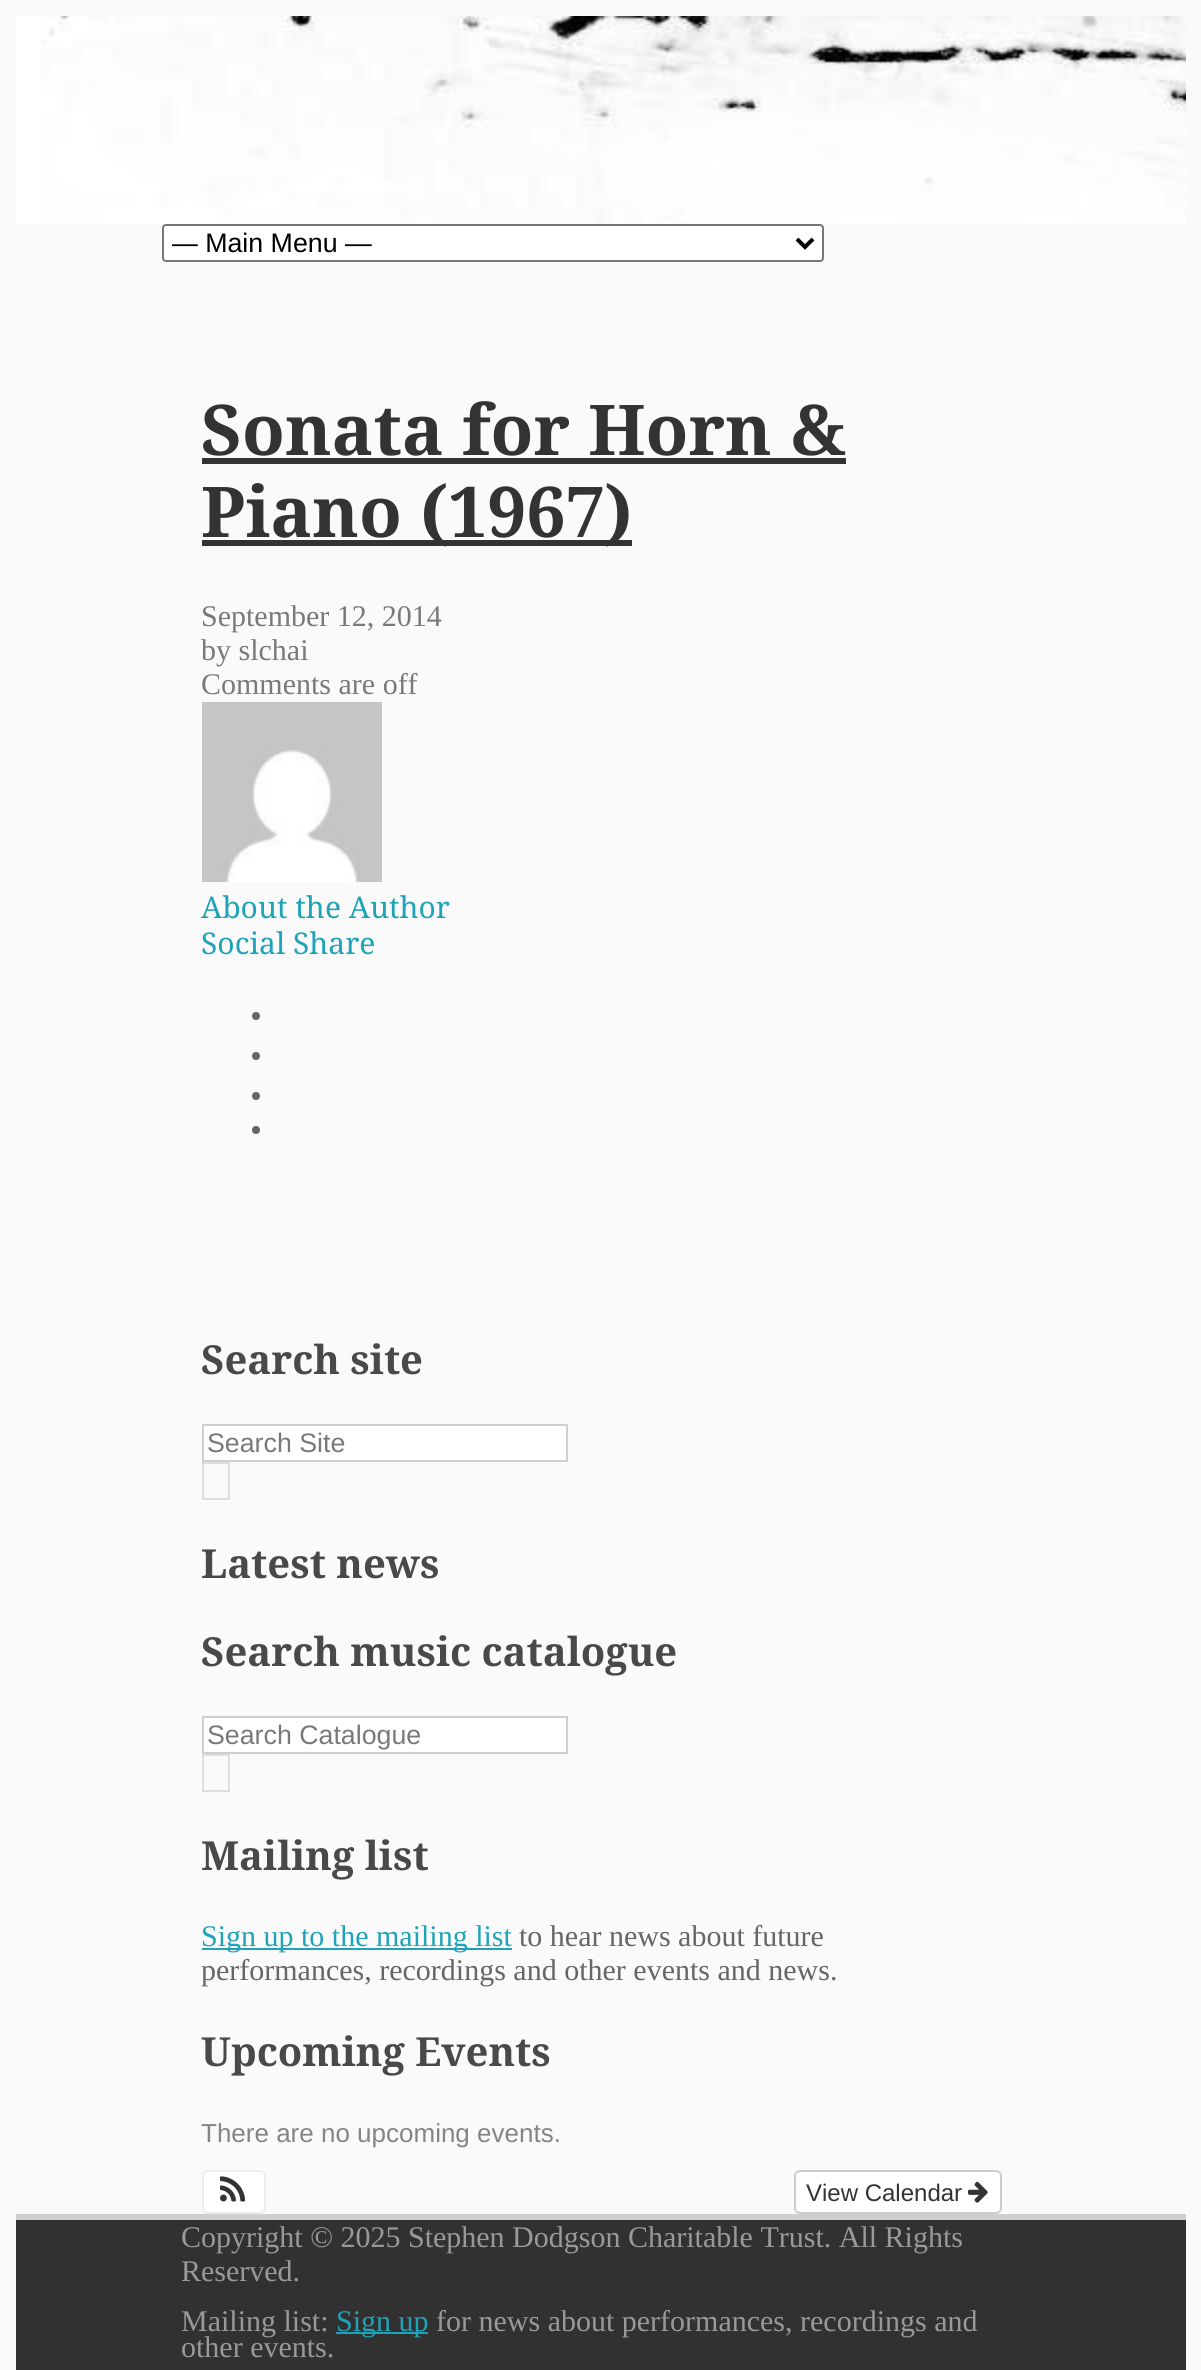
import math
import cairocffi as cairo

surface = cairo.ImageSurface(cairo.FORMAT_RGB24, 1201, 2370)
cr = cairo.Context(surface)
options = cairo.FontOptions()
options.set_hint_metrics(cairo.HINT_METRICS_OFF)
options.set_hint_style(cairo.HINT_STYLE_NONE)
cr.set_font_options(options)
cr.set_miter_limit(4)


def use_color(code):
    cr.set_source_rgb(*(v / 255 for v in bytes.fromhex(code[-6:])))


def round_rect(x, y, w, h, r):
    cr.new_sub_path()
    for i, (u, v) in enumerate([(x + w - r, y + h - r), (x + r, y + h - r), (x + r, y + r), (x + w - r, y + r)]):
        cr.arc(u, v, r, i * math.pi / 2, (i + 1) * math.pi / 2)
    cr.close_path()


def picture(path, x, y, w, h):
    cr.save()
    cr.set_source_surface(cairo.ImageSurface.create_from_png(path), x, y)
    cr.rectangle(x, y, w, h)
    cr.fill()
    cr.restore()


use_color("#fafafa")
cr.paint()
use_color("#ffffff")
cr.rectangle(16, 16, 25, 208)
cr.fill()
picture("img1.png", 41, 16, 1145, 208)
round_rect(163, 225, 660, 36, 3)
cr.fill_preserve()
use_color("#767676")
cr.stroke()
cr.new_path()
cr.move_to(797, 239)
cr.line_to(805, 247)
cr.line_to(813, 239)
use_color("#000000")
cr.set_line_width(4)
cr.stroke()
cr.save()
cr.rectangle(172, 226, 618, 34)
cr.clip()
cr.select_font_face("Liberation Sans")
cr.set_font_size(26.75)
cr.move_to(171, 252)
cr.show_text("— Main Menu —")
cr.restore()
cr.select_font_face("Droid Serif", cairo.FONT_SLANT_NORMAL, cairo.FONT_WEIGHT_BOLD)
cr.set_font_size(70)
use_color("#333333")
cr.move_to(201, 455)
cr.show_text("Sonata for Horn &")
cr.rectangle(202, 458, 644, 6)
cr.fill()
cr.rectangle(202, 540, 430, 6)
cr.fill()
cr.move_to(201, 537)
cr.show_text("Piano (1967)")
cr.select_font_face("Liberation Serif")
cr.set_font_size(30)
use_color("#797979")
cr.move_to(201, 626)
cr.show_text("September 12, 2014")
cr.move_to(201, 660)
cr.show_text("by slchai")
cr.move_to(201, 694)
cr.show_text("Comments are off")
picture("img2.png", 202, 702, 180, 180)
cr.select_font_face("Droid Serif")
use_color("#1ea3b8")
cr.move_to(201, 918)
cr.show_text("About the Author")
cr.move_to(201, 954)
cr.show_text("Social Share")
use_color("#666666")
cr.new_path()
cr.arc(256, 1016, 4, 0, 2 * math.pi)
cr.fill()
cr.arc(256, 1056, 4, 0, 2 * math.pi)
cr.fill()
cr.arc(256, 1096, 4, 0, 2 * math.pi)
cr.fill()
cr.arc(256, 1130, 4, 0, 2 * math.pi)
cr.fill()
cr.select_font_face("Droid Serif", cairo.FONT_SLANT_NORMAL, cairo.FONT_WEIGHT_BOLD)
cr.set_font_size(40)
use_color("#494949")
cr.move_to(201, 1374)
cr.show_text("Search site")
use_color("#ffffff")
cr.rectangle(203, 1425, 364, 36)
cr.fill_preserve()
use_color("#cfcfcf")
cr.set_line_width(2)
cr.stroke()
cr.select_font_face("Liberation Sans")
cr.set_font_size(26.75)
use_color("#797979")
cr.move_to(207, 1452)
cr.show_text("Search Site")
cr.rectangle(203, 1463, 26, 36)
use_color("#dedede")
cr.stroke()
cr.select_font_face("Droid Serif", cairo.FONT_SLANT_NORMAL, cairo.FONT_WEIGHT_BOLD)
cr.set_font_size(40)
use_color("#494949")
cr.move_to(201, 1578)
cr.show_text("Latest news")
cr.move_to(201, 1666)
cr.show_text("Search music catalogue")
use_color("#ffffff")
cr.rectangle(203, 1717, 364, 36)
cr.fill_preserve()
use_color("#cfcfcf")
cr.stroke()
cr.select_font_face("Liberation Sans")
cr.set_font_size(26.75)
use_color("#797979")
cr.move_to(207, 1744)
cr.show_text("Search Catalogue")
cr.rectangle(203, 1755, 26, 36)
use_color("#dedede")
cr.stroke()
cr.select_font_face("Droid Serif", cairo.FONT_SLANT_NORMAL, cairo.FONT_WEIGHT_BOLD)
cr.set_font_size(40)
use_color("#494949")
cr.move_to(201, 1870)
cr.show_text("Mailing list")
use_color("#1ea3b8")
cr.rectangle(202, 1948, 310, 2)
cr.fill()
cr.select_font_face("Liberation Serif")
cr.set_font_size(30)
cr.move_to(201, 1946)
cr.show_text("Sign up to the mailing list")
use_color("#666666")
cr.move_to(519, 1946)
cr.show_text("to hear news about future")
cr.move_to(201, 1980)
cr.show_text("performances, recordings and other events and news.")
cr.select_font_face("Droid Serif", cairo.FONT_SLANT_NORMAL, cairo.FONT_WEIGHT_BOLD)
cr.set_font_size(40)
use_color("#494949")
cr.move_to(201, 2066)
cr.show_text("Upcoming Events")
cr.select_font_face("Liberation Sans")
cr.set_font_size(26)
use_color("#858585")
cr.move_to(201, 2142)
cr.show_text("There are no upcoming events.")
use_color("#ffffff")
round_rect(203, 2171, 62, 42, 5)
cr.fill_preserve()
use_color("#ececec")
cr.stroke()
picture("img3.png", 220, 2176, 26, 26)
use_color("#ffffff")
round_rect(795, 2171, 206, 42, 5)
cr.fill_preserve()
use_color("#cccccc")
cr.stroke()
cr.set_font_size(24)
use_color("#333333")
cr.move_to(806, 2201)
cr.show_text("View Calendar")
picture("img4.png", 968, 2181, 20, 22)
use_color("#313131")
cr.rectangle(16, 2220, 1170, 150)
cr.fill()
use_color("#cfcfcf")
cr.rectangle(16, 2214, 1170, 6)
cr.fill()
cr.select_font_face("Liberation Serif")
cr.set_font_size(30)
use_color("#999999")
cr.move_to(181, 2247)
cr.show_text("Copyright © 2025 Stephen Dodgson Charitable Trust. All Rights")
cr.move_to(181, 2281)
cr.show_text("Reserved.")
cr.move_to(181, 2331)
cr.show_text("Mailing list:")
use_color("#1ea3b8")
cr.rectangle(336, 2332, 92, 2)
cr.fill()
cr.move_to(336, 2331)
cr.show_text("Sign up")
use_color("#999999")
cr.move_to(436, 2331)
cr.show_text("for news about performances, recordings and")
cr.move_to(181, 2357)
cr.show_text("other events.")
surface.write_to_png("result.png")
